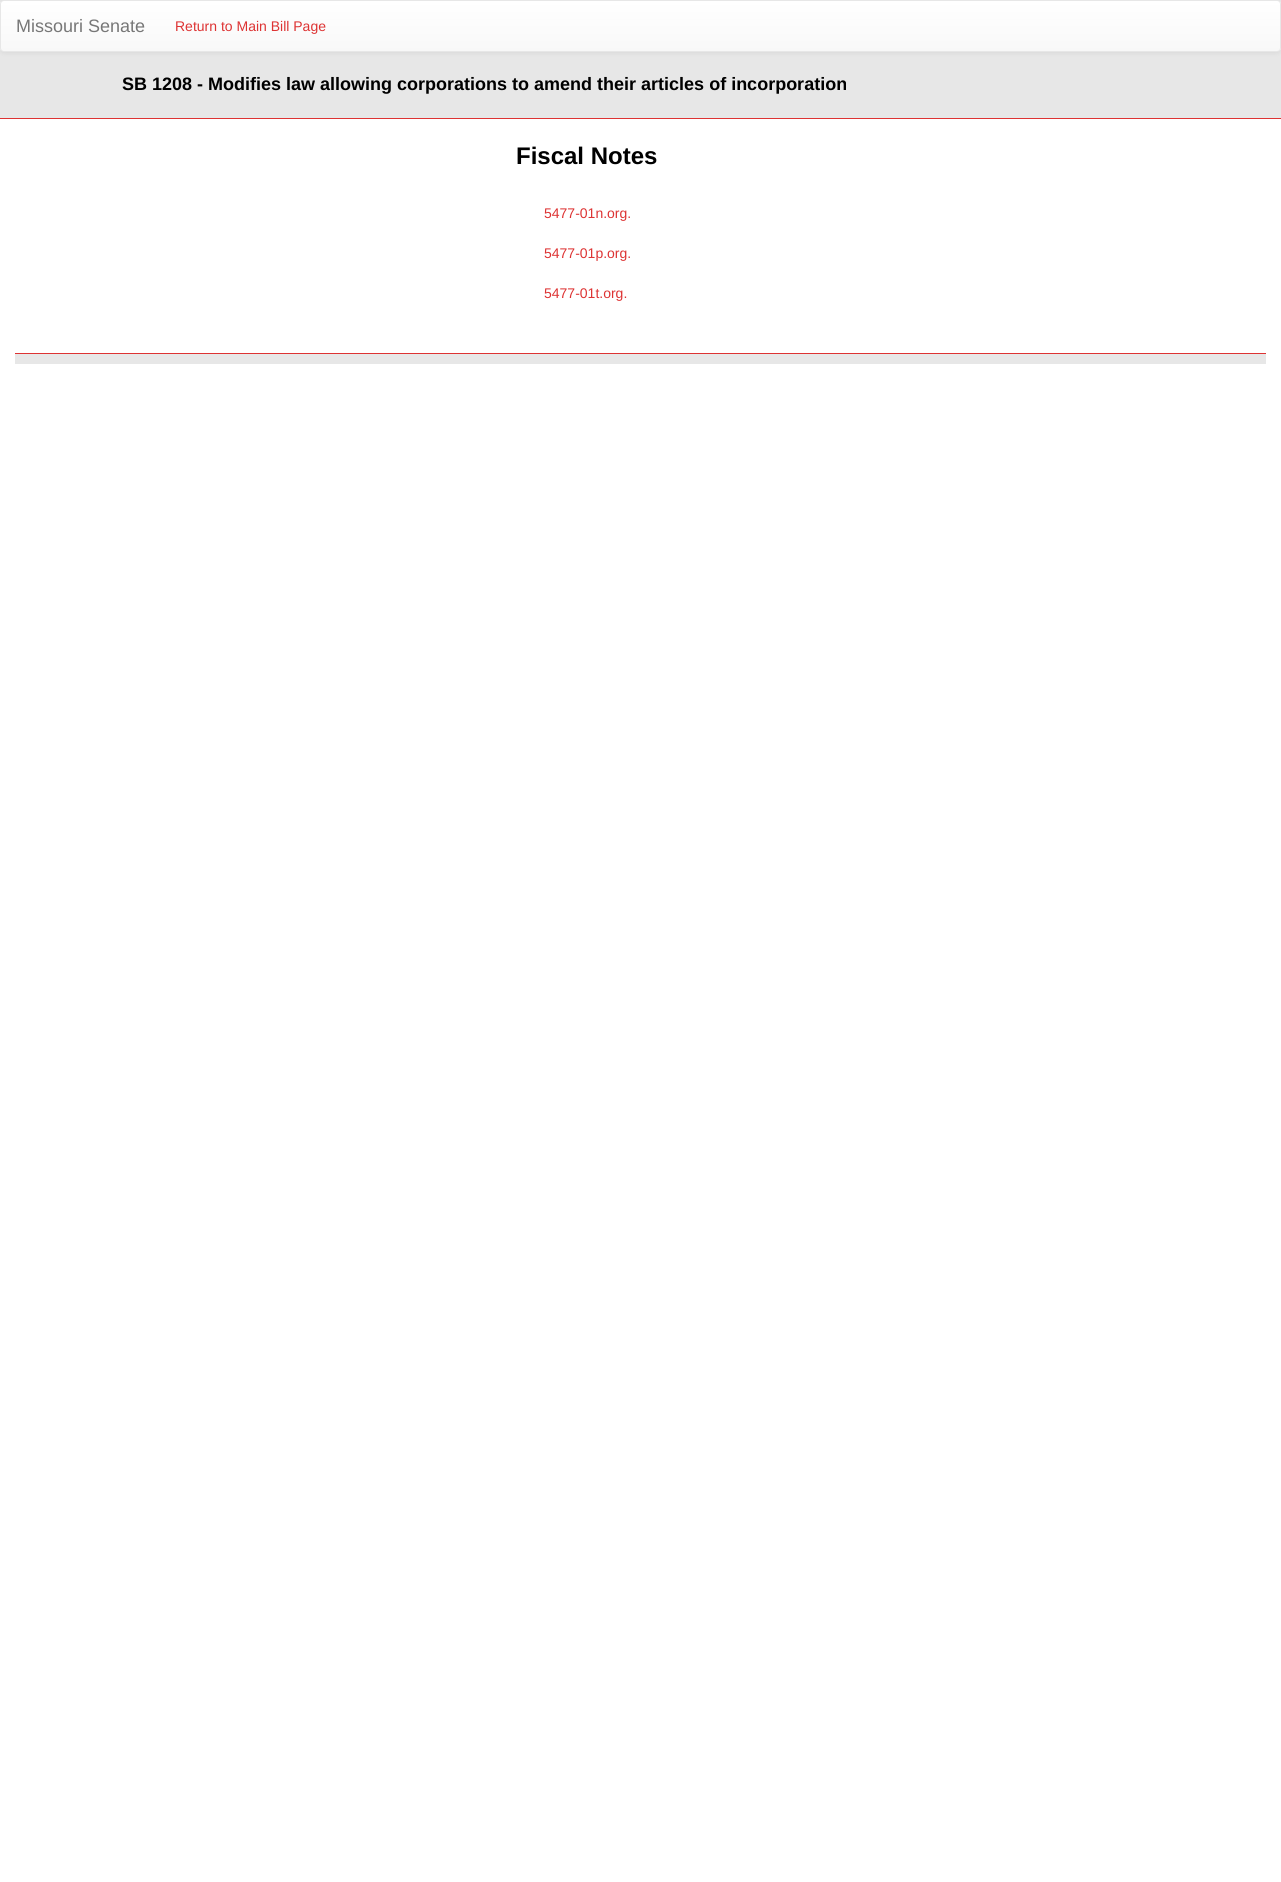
import math
import cairocffi as cairo

surface = cairo.ImageSurface(cairo.FORMAT_RGB24, 1281, 1882)
cr = cairo.Context(surface)
options = cairo.FontOptions()
options.set_hint_metrics(cairo.HINT_METRICS_OFF)
options.set_hint_style(cairo.HINT_STYLE_NONE)
cr.set_font_options(options)
cr.set_miter_limit(4)


def use_color(code):
    cr.set_source_rgb(*(v / 255 for v in bytes.fromhex(code[-6:])))


def round_rect(x, y, w, h, r):
    cr.new_sub_path()
    for i, (u, v) in enumerate([(x + w - r, y + h - r), (x + r, y + h - r), (x + r, y + r), (x + w - r, y + r)]):
        cr.arc(u, v, r, i * math.pi / 2, (i + 1) * math.pi / 2)
    cr.close_path()


def shadow(x, y, w, h, r, blur, alpha):
    cr.push_group_with_content(cairo.CONTENT_ALPHA)
    cr.set_operator(cairo.OPERATOR_SOURCE)
    for i in range(15, -16, -2):
        e = blur * i / 6
        if min(w, h) + 2 * e > 0:
            cr.set_source_rgba(0, 0, 0, alpha * math.erfc((i - 1) / 8.5) / 2)
            round_rect(x - e, y - e, w + 2 * e, h + 2 * e, max(0, min(r + e + blur * .6, min(w, h) / 2 + e)))
            cr.fill()
    cr.mask(cr.pop_group())


use_color("#ffffff")
cr.paint()
use_color("#e7e7e7")
cr.rectangle(0, 0, 1281, 118)
cr.fill()
use_color("#dd3333")
cr.rectangle(0, 118, 1281, 1)
cr.fill()
use_color("#000000")
shadow(0, 1, 1281, 52, 4, 2.5, 0.07)
cr.save()
round_rect(0, 0, 1281, 52, 4)
cr.clip()
gradient = cairo.LinearGradient(641, 1, 641, 51)
gradient.add_color_stop_rgba(0, 1, 1, 1, 1)
gradient.add_color_stop_rgba(1, 0.973, 0.973, 0.973, 1)
cr.set_source(gradient)
cr.rectangle(0, 1, 1281, 50)
cr.fill()
cr.restore()
round_rect(0.5, 0.5, 1280, 51, 3.5)
use_color("#e7e7e7")
cr.set_line_width(1)
cr.stroke()
cr.select_font_face("Liberation Sans")
cr.set_font_size(18)
use_color("#777777")
cr.move_to(16, 32)
cr.show_text("Missouri Senate")
cr.set_font_size(14)
use_color("#dd3333")
cr.move_to(175, 31)
cr.show_text("Return to Main Bill Page")
cr.select_font_face("Liberation Sans", cairo.FONT_SLANT_NORMAL, cairo.FONT_WEIGHT_BOLD)
cr.set_font_size(18)
use_color("#000000")
cr.move_to(122, 90)
cr.show_text("SB 1208 - Modifies law allowing corporations to amend their articles of incorporation")
cr.set_font_size(24)
cr.move_to(516, 164)
cr.show_text("Fiscal Notes")
cr.select_font_face("Liberation Sans")
cr.set_font_size(14)
use_color("#dd3333")
cr.move_to(544, 218)
cr.show_text("5477-01n.org.")
cr.move_to(544, 258)
cr.show_text("5477-01p.org.")
cr.move_to(544, 298)
cr.show_text("5477-01t.org.")
use_color("#e7e7e7")
cr.rectangle(15, 354, 1251, 10)
cr.fill()
use_color("#dd3333")
cr.rectangle(15, 353, 1251, 1)
cr.fill()
surface.write_to_png("result.png")
